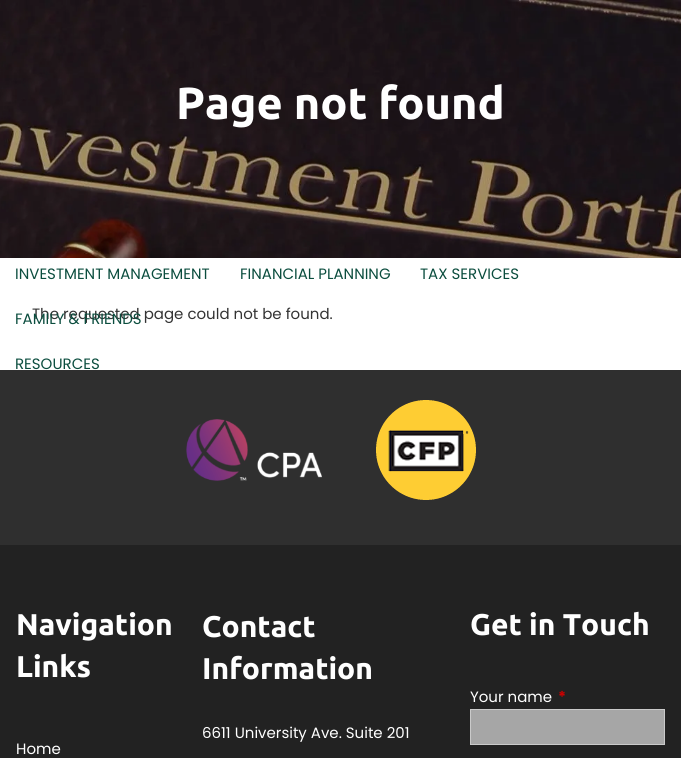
import math
import cairocffi as cairo

surface = cairo.ImageSurface(cairo.FORMAT_RGB24, 681, 758)
cr = cairo.Context(surface)
options = cairo.FontOptions()
options.set_hint_metrics(cairo.HINT_METRICS_OFF)
options.set_hint_style(cairo.HINT_STYLE_NONE)
cr.set_font_options(options)
cr.set_miter_limit(4)


def use_color(code):
    cr.set_source_rgb(*(v / 255 for v in bytes.fromhex(code[-6:])))


def picture(path, x, y, w, h):
    cr.save()
    cr.set_source_surface(cairo.ImageSurface.create_from_png(path), x, y)
    cr.rectangle(x, y, w, h)
    cr.fill()
    cr.restore()


use_color("#ffffff")
cr.paint()
picture("img1.png", 0, 0, 681, 258)
cr.select_font_face("Ubuntu", cairo.FONT_SLANT_NORMAL, cairo.FONT_WEIGHT_BOLD)
cr.set_font_size(45)
use_color("#ffffff")
cr.move_to(176, 119)
cr.show_text("Page not found")
cr.select_font_face("Poppins")
cr.set_font_size(15)
use_color("#0b4d3e")
cr.move_to(15, 279)
cr.show_text("INVESTMENT MANAGEMENT")
cr.move_to(240, 279)
cr.show_text("FINANCIAL PLANNING")
cr.move_to(420, 279)
cr.show_text("TAX SERVICES")
use_color("#333333")
cr.move_to(32, 319)
cr.show_text("The requested page could not be found.")
use_color("#0b4d3e")
cr.move_to(15, 324)
cr.show_text("FAMILY & FRIENDS")
cr.move_to(15, 369)
cr.show_text("RESOURCES")
use_color("#2f2f2f")
cr.rectangle(0, 370, 681, 175)
cr.fill()
picture("img2.png", 186, 419, 136, 62)
picture("img3.png", 376, 400, 100, 100)
use_color("#222222")
cr.rectangle(0, 545, 681, 213)
cr.fill()
cr.select_font_face("Ubuntu", cairo.FONT_SLANT_NORMAL, cairo.FONT_WEIGHT_BOLD)
cr.set_font_size(30)
use_color("#ffffff")
cr.move_to(16, 635)
cr.show_text("Navigation")
cr.move_to(16, 677)
cr.show_text("Links")
cr.select_font_face("Poppins")
cr.set_font_size(15)
cr.move_to(16, 754)
cr.show_text("Home")
cr.select_font_face("Ubuntu", cairo.FONT_SLANT_NORMAL, cairo.FONT_WEIGHT_BOLD)
cr.set_font_size(30)
cr.move_to(202, 637)
cr.show_text("Contact")
cr.move_to(202, 679)
cr.show_text("Information")
cr.select_font_face("Poppins")
cr.set_font_size(15)
cr.move_to(202, 738)
cr.show_text("6611 University Ave. Suite 201")
cr.select_font_face("Ubuntu", cairo.FONT_SLANT_NORMAL, cairo.FONT_WEIGHT_BOLD)
cr.set_font_size(30)
cr.move_to(470, 635)
cr.show_text("Get in Touch")
cr.select_font_face("Poppins")
cr.set_font_size(15)
cr.move_to(470, 702)
cr.show_text("Your name")
cr.select_font_face("Poppins", cairo.FONT_SLANT_NORMAL, cairo.FONT_WEIGHT_BOLD)
use_color("#cc0000")
cr.move_to(558, 702)
cr.show_text("*")
use_color("#a6a6a6")
cr.rectangle(470.5, 709.5, 194, 35)
cr.fill_preserve()
use_color("#cacaca")
cr.set_line_width(1)
cr.stroke()
surface.write_to_png("result.png")
